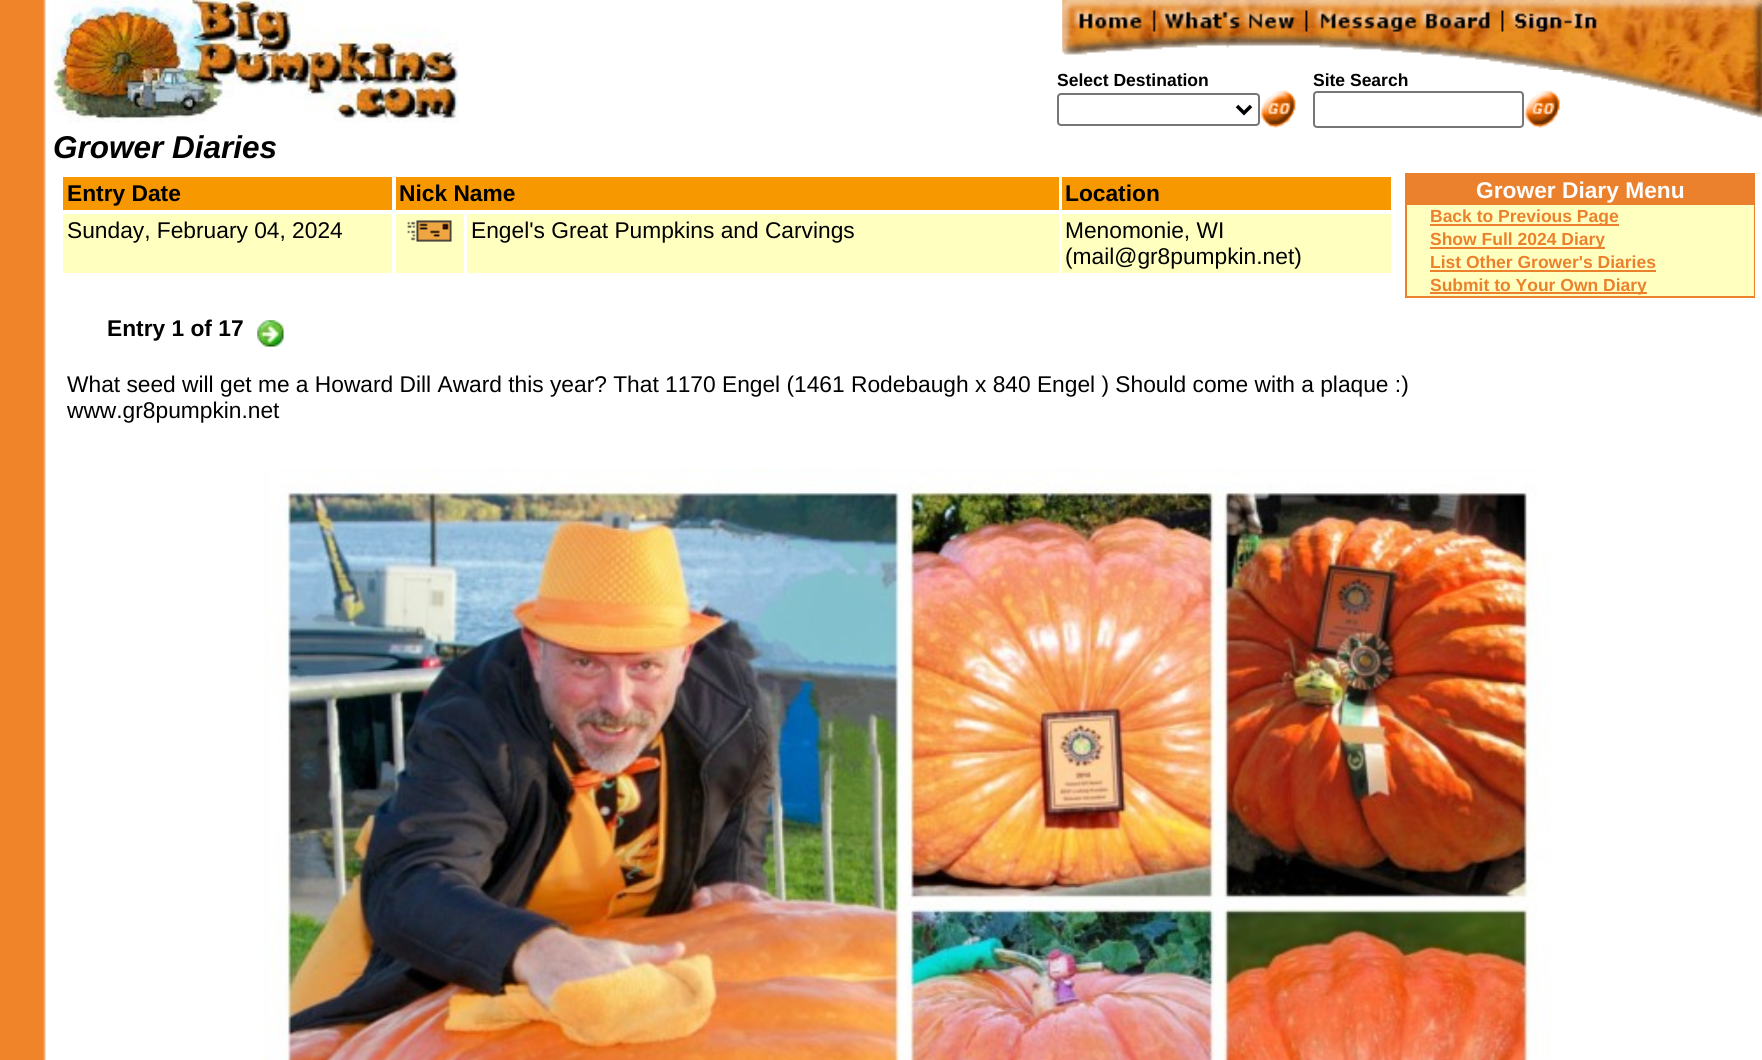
import math
import cairocffi as cairo

surface = cairo.ImageSurface(cairo.FORMAT_RGB24, 1762, 1060)
cr = cairo.Context(surface)
options = cairo.FontOptions()
options.set_hint_metrics(cairo.HINT_METRICS_OFF)
options.set_hint_style(cairo.HINT_STYLE_NONE)
cr.set_font_options(options)
cr.set_miter_limit(4)


def use_color(code):
    cr.set_source_rgb(*(v / 255 for v in bytes.fromhex(code[-6:])))


def round_rect(x, y, w, h, r):
    cr.new_sub_path()
    for i, (u, v) in enumerate([(x + w - r, y + h - r), (x + r, y + h - r), (x + r, y + r), (x + w - r, y + r)]):
        cr.arc(u, v, r, i * math.pi / 2, (i + 1) * math.pi / 2)
    cr.close_path()


def picture(path, x, y, w, h):
    cr.save()
    cr.set_source_surface(cairo.ImageSurface.create_from_png(path), x, y)
    cr.rectangle(x, y, w, h)
    cr.fill()
    cr.restore()


use_color("#ffffff")
cr.paint()
picture("img1.png", 0, 0, 46, 1060)
picture("img2.png", 52, 0, 407, 123)
picture("img3.png", 1062, 0, 700, 70)
cr.select_font_face("Liberation Sans", cairo.FONT_SLANT_NORMAL, cairo.FONT_WEIGHT_BOLD)
cr.set_font_size(17.5)
use_color("#000000")
cr.move_to(1057, 86)
cr.show_text("Select Destination")
cr.move_to(1313, 86)
cr.show_text("Site Search")
picture("img4.png", 1562, 70, 200, 48)
round_rect(1058, 94, 201, 31, 3)
use_color("#767676")
cr.stroke()
cr.new_path()
cr.move_to(1237, 106)
cr.line_to(1244, 113)
cr.line_to(1251, 106)
use_color("#000000")
cr.set_line_width(3.5)
cr.stroke()
picture("img5.png", 1260, 90, 36, 39)
round_rect(1314, 92, 209, 35, 3)
use_color("#767676")
cr.set_line_width(2)
cr.stroke()
picture("img6.png", 1524, 90, 36, 39)
cr.select_font_face("Liberation Sans", cairo.FONT_SLANT_ITALIC, cairo.FONT_WEIGHT_BOLD)
cr.set_font_size(31.5)
use_color("#000000")
cr.move_to(53, 158)
cr.show_text("Grower Diaries")
use_color("#f89800")
cr.rectangle(63, 177, 329, 33)
cr.fill()
cr.select_font_face("Liberation Sans", cairo.FONT_SLANT_NORMAL, cairo.FONT_WEIGHT_BOLD)
cr.set_font_size(22.75)
use_color("#000000")
cr.move_to(67, 201)
cr.show_text("Entry Date")
use_color("#f89800")
cr.rectangle(396, 177, 663, 33)
cr.fill()
use_color("#000000")
cr.move_to(399, 201)
cr.show_text("Nick Name")
use_color("#f89800")
cr.rectangle(1062, 177, 329, 33)
cr.fill()
use_color("#000000")
cr.move_to(1065, 201)
cr.show_text("Location")
use_color("#ffffc0")
cr.rectangle(63, 214, 329, 59)
cr.fill()
cr.select_font_face("Liberation Sans")
use_color("#000000")
cr.move_to(67, 238)
cr.show_text("Sunday, February 04, 2024")
use_color("#ffffc0")
cr.rectangle(396, 214, 68, 59)
cr.fill()
picture("img7.png", 407, 220, 45, 22)
cr.rectangle(467, 214, 592, 59)
cr.fill()
use_color("#000000")
cr.move_to(471, 238)
cr.show_text("Engel's Great Pumpkins and Carvings")
use_color("#ffffc0")
cr.rectangle(1062, 214, 329, 59)
cr.fill()
use_color("#000000")
cr.move_to(1065, 238)
cr.show_text("Menomonie, WI")
cr.move_to(1065, 264)
cr.show_text("(mail@gr8pumpkin.net)")
cr.select_font_face("Liberation Sans", cairo.FONT_SLANT_NORMAL, cairo.FONT_WEIGHT_BOLD)
cr.move_to(107, 336)
cr.show_text("Entry 1 of 17")
picture("img8.png", 257, 320, 27, 27)
use_color("#eb812d")
cr.rectangle(1405, 173, 350, 125)
cr.fill()
use_color("#ffffff")
cr.move_to(1476, 198)
cr.show_text("Grower Diary Menu")
use_color("#ffffc0")
cr.rectangle(1407, 205, 21, 91)
cr.fill()
cr.rectangle(1428, 205, 326, 91)
cr.fill()
use_color("#eb812d")
cr.rectangle(1430, 224, 189, 2)
cr.fill()
cr.set_font_size(17.5)
cr.move_to(1430, 222)
cr.show_text("Back to Previous Page")
cr.rectangle(1430, 247, 175, 2)
cr.fill()
cr.move_to(1430, 245)
cr.show_text("Show Full 2024 Diary")
cr.move_to(1430, 268)
cr.show_text("List Other Grower's Diaries")
cr.rectangle(1430, 270, 226, 2)
cr.fill()
cr.rectangle(1430, 292, 217, 2)
cr.fill()
cr.move_to(1430, 291)
cr.show_text("Submit to Your Own Diary")
cr.select_font_face("Liberation Sans")
cr.set_font_size(22.75)
use_color("#000000")
cr.move_to(67, 392)
cr.show_text("What seed will get me a Howard Dill Award this year? That 1170 Engel (1461 Rodebaugh x 840 Engel ) Should come with a plaque :)")
cr.move_to(67, 418)
cr.show_text("www.gr8pumpkin.net")
picture("img9.png", 264, 469, 1286, 591)
surface.write_to_png("result.png")
